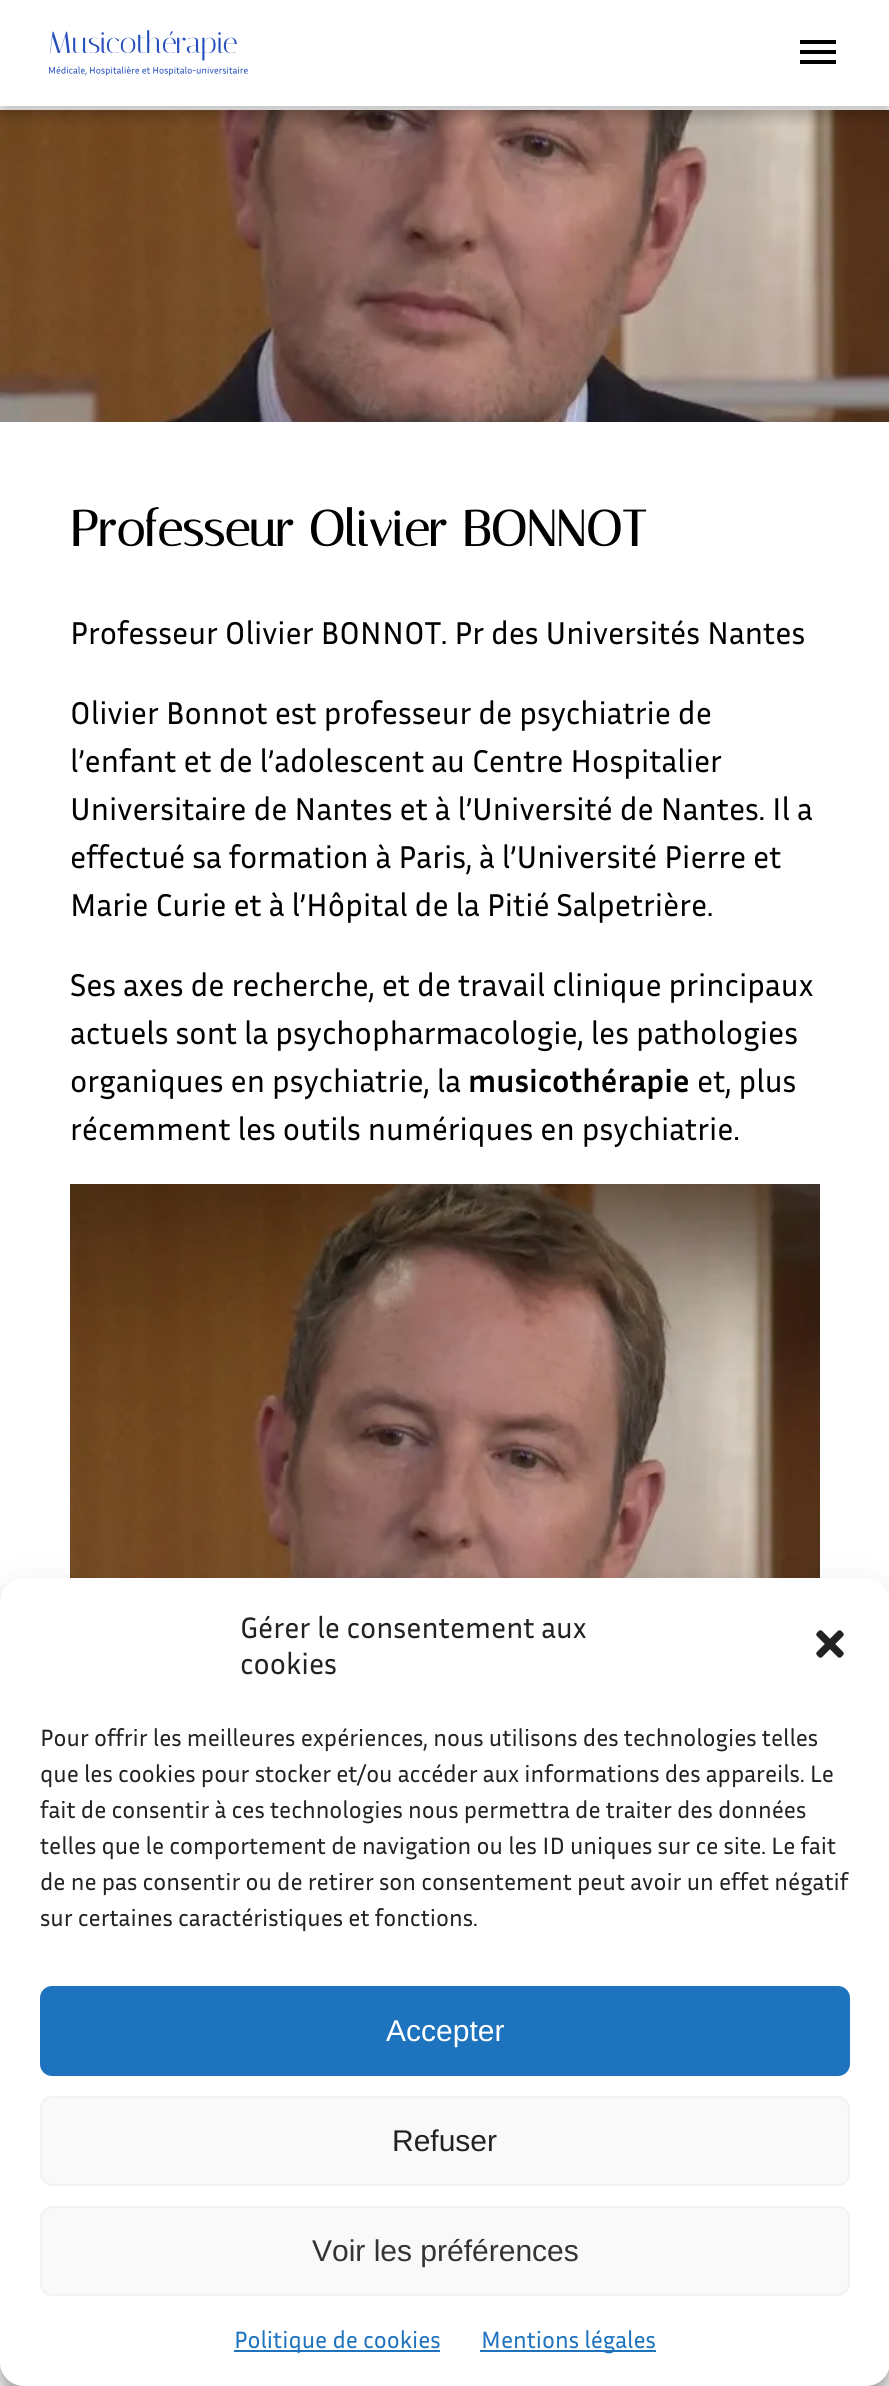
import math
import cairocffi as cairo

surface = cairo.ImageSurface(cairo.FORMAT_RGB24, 889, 2386)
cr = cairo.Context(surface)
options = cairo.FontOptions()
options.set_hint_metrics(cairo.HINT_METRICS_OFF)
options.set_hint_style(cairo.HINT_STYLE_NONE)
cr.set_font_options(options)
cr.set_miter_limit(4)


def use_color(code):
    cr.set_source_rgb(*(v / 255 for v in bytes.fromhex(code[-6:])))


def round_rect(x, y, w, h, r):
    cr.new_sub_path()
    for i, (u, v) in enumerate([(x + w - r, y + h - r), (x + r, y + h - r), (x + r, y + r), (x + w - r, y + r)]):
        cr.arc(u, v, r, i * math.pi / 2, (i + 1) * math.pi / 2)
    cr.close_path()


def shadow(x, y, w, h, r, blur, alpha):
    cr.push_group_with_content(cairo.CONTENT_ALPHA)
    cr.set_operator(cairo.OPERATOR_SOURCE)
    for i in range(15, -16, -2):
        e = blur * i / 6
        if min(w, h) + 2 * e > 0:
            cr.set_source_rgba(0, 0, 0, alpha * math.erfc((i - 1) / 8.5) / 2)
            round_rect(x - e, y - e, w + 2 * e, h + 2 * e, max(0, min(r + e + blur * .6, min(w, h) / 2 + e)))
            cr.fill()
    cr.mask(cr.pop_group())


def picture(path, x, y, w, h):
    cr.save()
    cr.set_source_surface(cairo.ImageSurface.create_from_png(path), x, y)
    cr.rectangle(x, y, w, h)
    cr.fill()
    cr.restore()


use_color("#ffffff")
cr.paint()
picture("img2.png", 0, 110, 889, 312)
cr.save()
cr.rectangle(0, 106, 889, 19)
cr.clip()
use_color("#000000")
shadow(0, 8, 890, 106, 0, 8, 0.25)
cr.restore()
picture("img1.png", 49, 30, 199, 46)
use_color("#000000")
cr.new_path()
cr.move_to(800, 64)
cr.line_to(836, 64)
cr.line_to(836, 60)
cr.line_to(800, 60)
cr.close_path()
cr.move_to(800, 54)
cr.line_to(836, 54)
cr.line_to(836, 50)
cr.line_to(800, 50)
cr.close_path()
cr.move_to(800, 40)
cr.line_to(800, 44)
cr.line_to(836, 44)
cr.line_to(836, 40)
cr.close_path()
cr.fill()
cr.select_font_face("Italiana", cairo.FONT_SLANT_NORMAL, cairo.FONT_WEIGHT_BOLD)
cr.set_font_size(50)
cr.move_to(70, 546)
cr.show_text("Professeur Olivier BONNOT")
cr.select_font_face("Inria Sans")
cr.set_font_size(32)
cr.move_to(70, 644)
cr.show_text("Professeur Olivier BONNOT. Pr des Universités Nantes")
cr.move_to(70, 724)
cr.show_text("Olivier Bonnot est professeur de psychiatrie de")
cr.move_to(70, 772)
cr.show_text("l’enfant et de l’adolescent au Centre Hospitalier")
cr.move_to(70, 820)
cr.show_text("Universitaire de Nantes et à l’Université de Nantes. Il a")
cr.move_to(70, 868)
cr.show_text("effectué sa formation à Paris, à l’Université Pierre et")
cr.move_to(70, 916)
cr.show_text("Marie Curie et à l’Hôpital de la Pitié Salpetrière.")
cr.move_to(70, 996)
cr.show_text("Ses axes de recherche, et de travail clinique principaux")
cr.move_to(70, 1044)
cr.show_text("actuels sont la psychopharmacologie, les pathologies")
cr.move_to(70, 1092)
cr.show_text("organiques en psychiatrie, la")
cr.select_font_face("Inria Sans", cairo.FONT_SLANT_NORMAL, cairo.FONT_WEIGHT_BOLD)
cr.move_to(468, 1092)
cr.show_text("musicothérapie")
cr.select_font_face("Inria Sans")
cr.move_to(697, 1092)
cr.show_text("et, plus")
cr.move_to(70, 1140)
cr.show_text("récemment les outils numériques en psychiatrie.")
picture("img3.png", 70, 1184, 750, 394)
use_color("#000000")
shadow(0, 1590, 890, 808, 24, 6, 0.23)
shadow(0, 1598, 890, 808, 24, 20, 0.19)
use_color("#ffffff")
round_rect(0, 1578, 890, 808, 24)
cr.fill()
cr.set_font_size(30)
use_color("#222222")
cr.move_to(240, 1638)
cr.show_text("Gérer le consentement aux")
cr.move_to(240, 1674)
cr.show_text("cookies")
picture("img4.png", 816, 1630, 28, 28)
cr.set_font_size(24)
cr.move_to(40, 1746)
cr.show_text("Pour offrir les meilleures expériences, nous utilisons des technologies telles")
cr.move_to(40, 1782)
cr.show_text("que les cookies pour stocker et/ou accéder aux informations des appareils. Le")
cr.move_to(40, 1818)
cr.show_text("fait de consentir à ces technologies nous permettra de traiter des données")
cr.move_to(40, 1854)
cr.show_text("telles que le comportement de navigation ou les ID uniques sur ce site. Le fait")
cr.move_to(40, 1890)
cr.show_text("de ne pas consentir ou de retirer son consentement peut avoir un effet négatif")
cr.move_to(40, 1926)
cr.show_text("sur certaines caractéristiques et fonctions.")
use_color("#1e73be")
round_rect(41, 1987, 808, 88, 11)
cr.fill_preserve()
cr.stroke()
cr.select_font_face("Liberation Sans")
cr.set_font_size(30)
use_color("#ffffff")
cr.move_to(386, 2041)
cr.show_text("Accepter")
use_color("#f9f9f9")
round_rect(41, 2097, 808, 88, 11)
cr.fill_preserve()
use_color("#f2f2f2")
cr.stroke()
use_color("#222222")
cr.move_to(392, 2151)
cr.show_text("Refuser")
use_color("#f9f9f9")
round_rect(41, 2207, 808, 88, 11)
cr.fill_preserve()
use_color("#f2f2f2")
cr.stroke()
use_color("#333333")
cr.move_to(312, 2261)
cr.show_text("Voir les préférences")
use_color("#1e73be")
cr.rectangle(234, 2350, 206, 2)
cr.fill()
cr.select_font_face("Inria Sans")
cr.set_font_size(24)
cr.move_to(234, 2348)
cr.show_text("Politique de cookies")
cr.rectangle(480, 2350, 176, 2)
cr.fill()
cr.move_to(481, 2348)
cr.show_text("Mentions légales")
surface.write_to_png("result.png")
